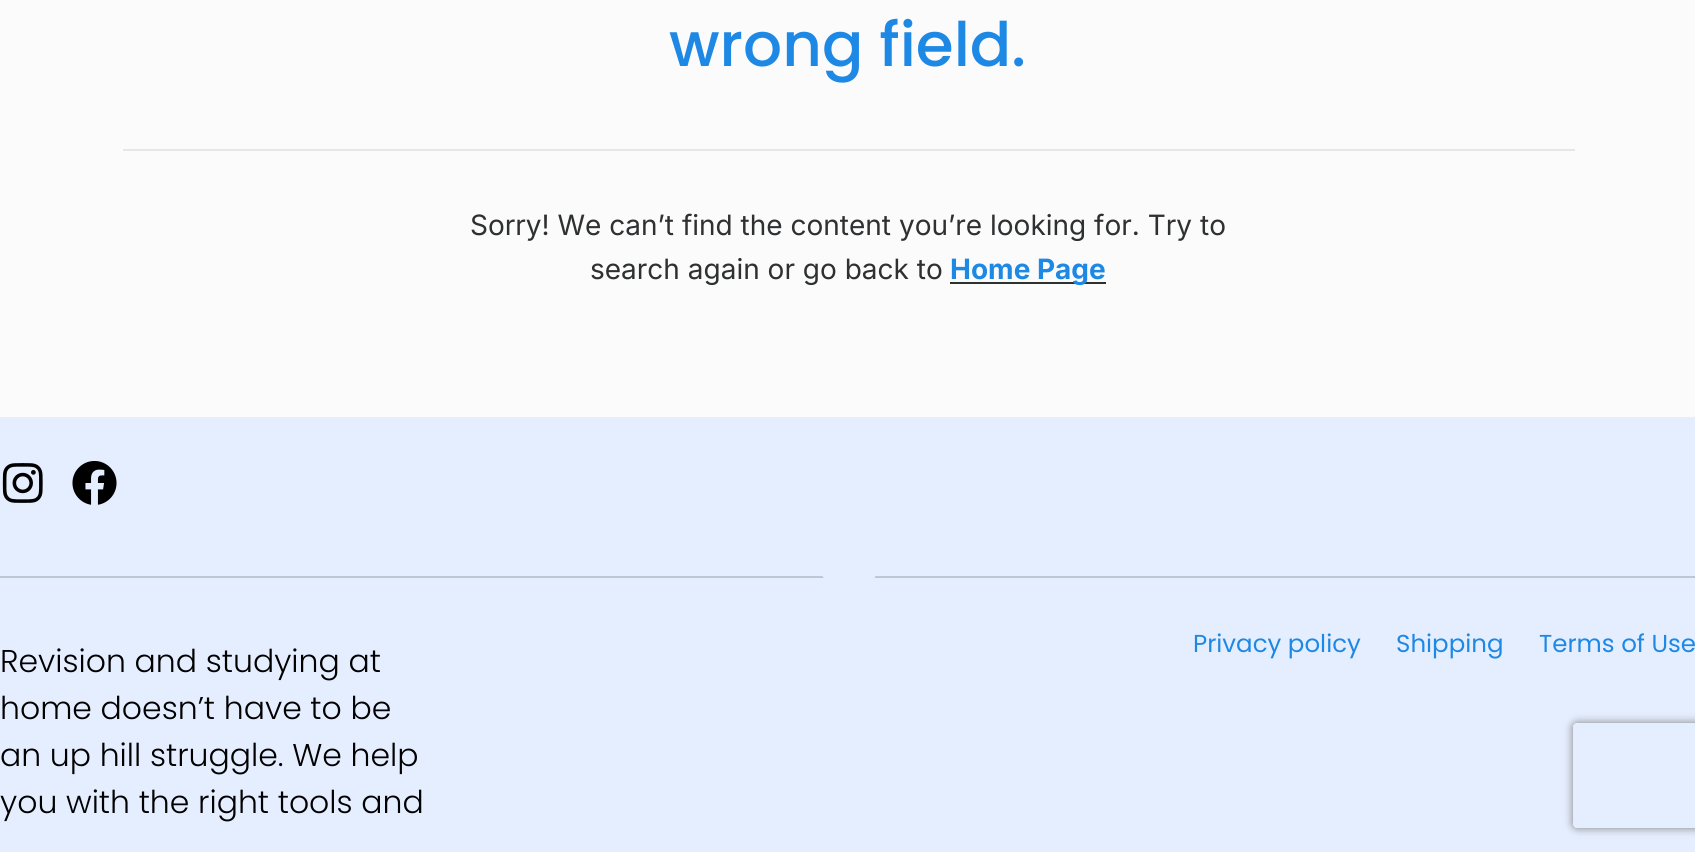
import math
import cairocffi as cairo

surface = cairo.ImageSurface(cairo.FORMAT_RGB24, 1695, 852)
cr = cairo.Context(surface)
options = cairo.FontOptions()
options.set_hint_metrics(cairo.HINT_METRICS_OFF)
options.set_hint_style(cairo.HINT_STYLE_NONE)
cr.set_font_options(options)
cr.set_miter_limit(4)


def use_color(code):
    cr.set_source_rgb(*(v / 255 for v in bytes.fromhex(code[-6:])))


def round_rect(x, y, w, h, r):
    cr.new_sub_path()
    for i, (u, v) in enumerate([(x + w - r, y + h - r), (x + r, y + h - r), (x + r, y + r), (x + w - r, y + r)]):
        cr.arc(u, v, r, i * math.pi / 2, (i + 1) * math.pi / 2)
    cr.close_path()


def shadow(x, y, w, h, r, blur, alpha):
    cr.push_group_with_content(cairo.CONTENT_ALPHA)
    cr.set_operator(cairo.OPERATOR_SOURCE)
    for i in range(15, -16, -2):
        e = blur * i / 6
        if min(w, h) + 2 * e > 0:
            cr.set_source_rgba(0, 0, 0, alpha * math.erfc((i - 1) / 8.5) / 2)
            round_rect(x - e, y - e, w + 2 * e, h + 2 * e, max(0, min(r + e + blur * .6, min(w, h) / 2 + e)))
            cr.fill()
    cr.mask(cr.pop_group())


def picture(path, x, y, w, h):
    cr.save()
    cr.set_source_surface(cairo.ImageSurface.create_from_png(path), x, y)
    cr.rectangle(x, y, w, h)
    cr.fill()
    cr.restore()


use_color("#fbfbfb")
cr.paint()
cr.select_font_face("Poppins Medium")
cr.set_font_size(61.25)
use_color("#1e88e5")
cr.move_to(669, 66)
cr.show_text("wrong field.")
use_color("#e6e6e6")
cr.rectangle(123, 149, 1452, 2)
cr.fill()
cr.select_font_face("Inter")
cr.set_font_size(28)
use_color("#2e3031")
cr.move_to(470, 235)
cr.show_text("Sorry! We can’t find the content you’re looking for. Try to")
cr.move_to(590, 279)
cr.show_text("search again or go back to")
cr.rectangle(950, 282, 156, 2)
cr.fill()
cr.select_font_face("Inter", cairo.FONT_SLANT_NORMAL, cairo.FONT_WEIGHT_BOLD)
use_color("#1e88e5")
cr.move_to(950, 279)
cr.show_text("Home Page")
use_color("#e5eeff")
cr.rectangle(0, 417, 1695, 435)
cr.fill()
picture("img1.png", 2, 463, 41, 40)
picture("img2.png", 72, 461, 45, 44)
use_color("#bec6d4")
cr.rectangle(0, 576, 1695, 2)
cr.fill()
use_color("#e5eeff")
cr.arc(849, 562, 30, 0, 2 * math.pi)
cr.fill()
cr.select_font_face("Poppins Light")
cr.set_font_size(31.5)
use_color("#000000")
cr.move_to(0, 672)
cr.show_text("Revision and studying at")
cr.move_to(0, 719)
cr.show_text("home doesn’t have to be")
cr.move_to(0, 766)
cr.show_text("an up hill struggle. We help")
cr.move_to(0, 813)
cr.show_text("you with the right tools and")
cr.select_font_face("Poppins")
cr.set_font_size(24.5)
use_color("#1e88e5")
cr.move_to(1193, 652)
cr.show_text("Privacy policy")
cr.move_to(1396, 652)
cr.show_text("Shipping")
cr.move_to(1539, 652)
cr.show_text("Terms of Use")
cr.save()
cr.set_fill_rule(cairo.FILL_RULE_EVEN_ODD)
cr.new_path()
cr.move_to(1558, 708)
cr.line_to(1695, 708)
cr.line_to(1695, 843)
cr.line_to(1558, 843)
cr.close_path()
cr.move_to(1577, 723)
cr.line_to(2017, 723)
cr.curve_to(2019, 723, 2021, 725, 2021, 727)
cr.line_to(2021, 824)
cr.curve_to(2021, 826, 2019, 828, 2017, 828)
cr.line_to(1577, 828)
cr.curve_to(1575, 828, 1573, 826, 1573, 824)
cr.line_to(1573, 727)
cr.curve_to(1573, 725, 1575, 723, 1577, 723)
cr.close_path()
cr.clip()
use_color("#808080")
shadow(1573, 723, 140, 105, 4, 4.5, 1)
cr.restore()
surface.write_to_png("result.png")
